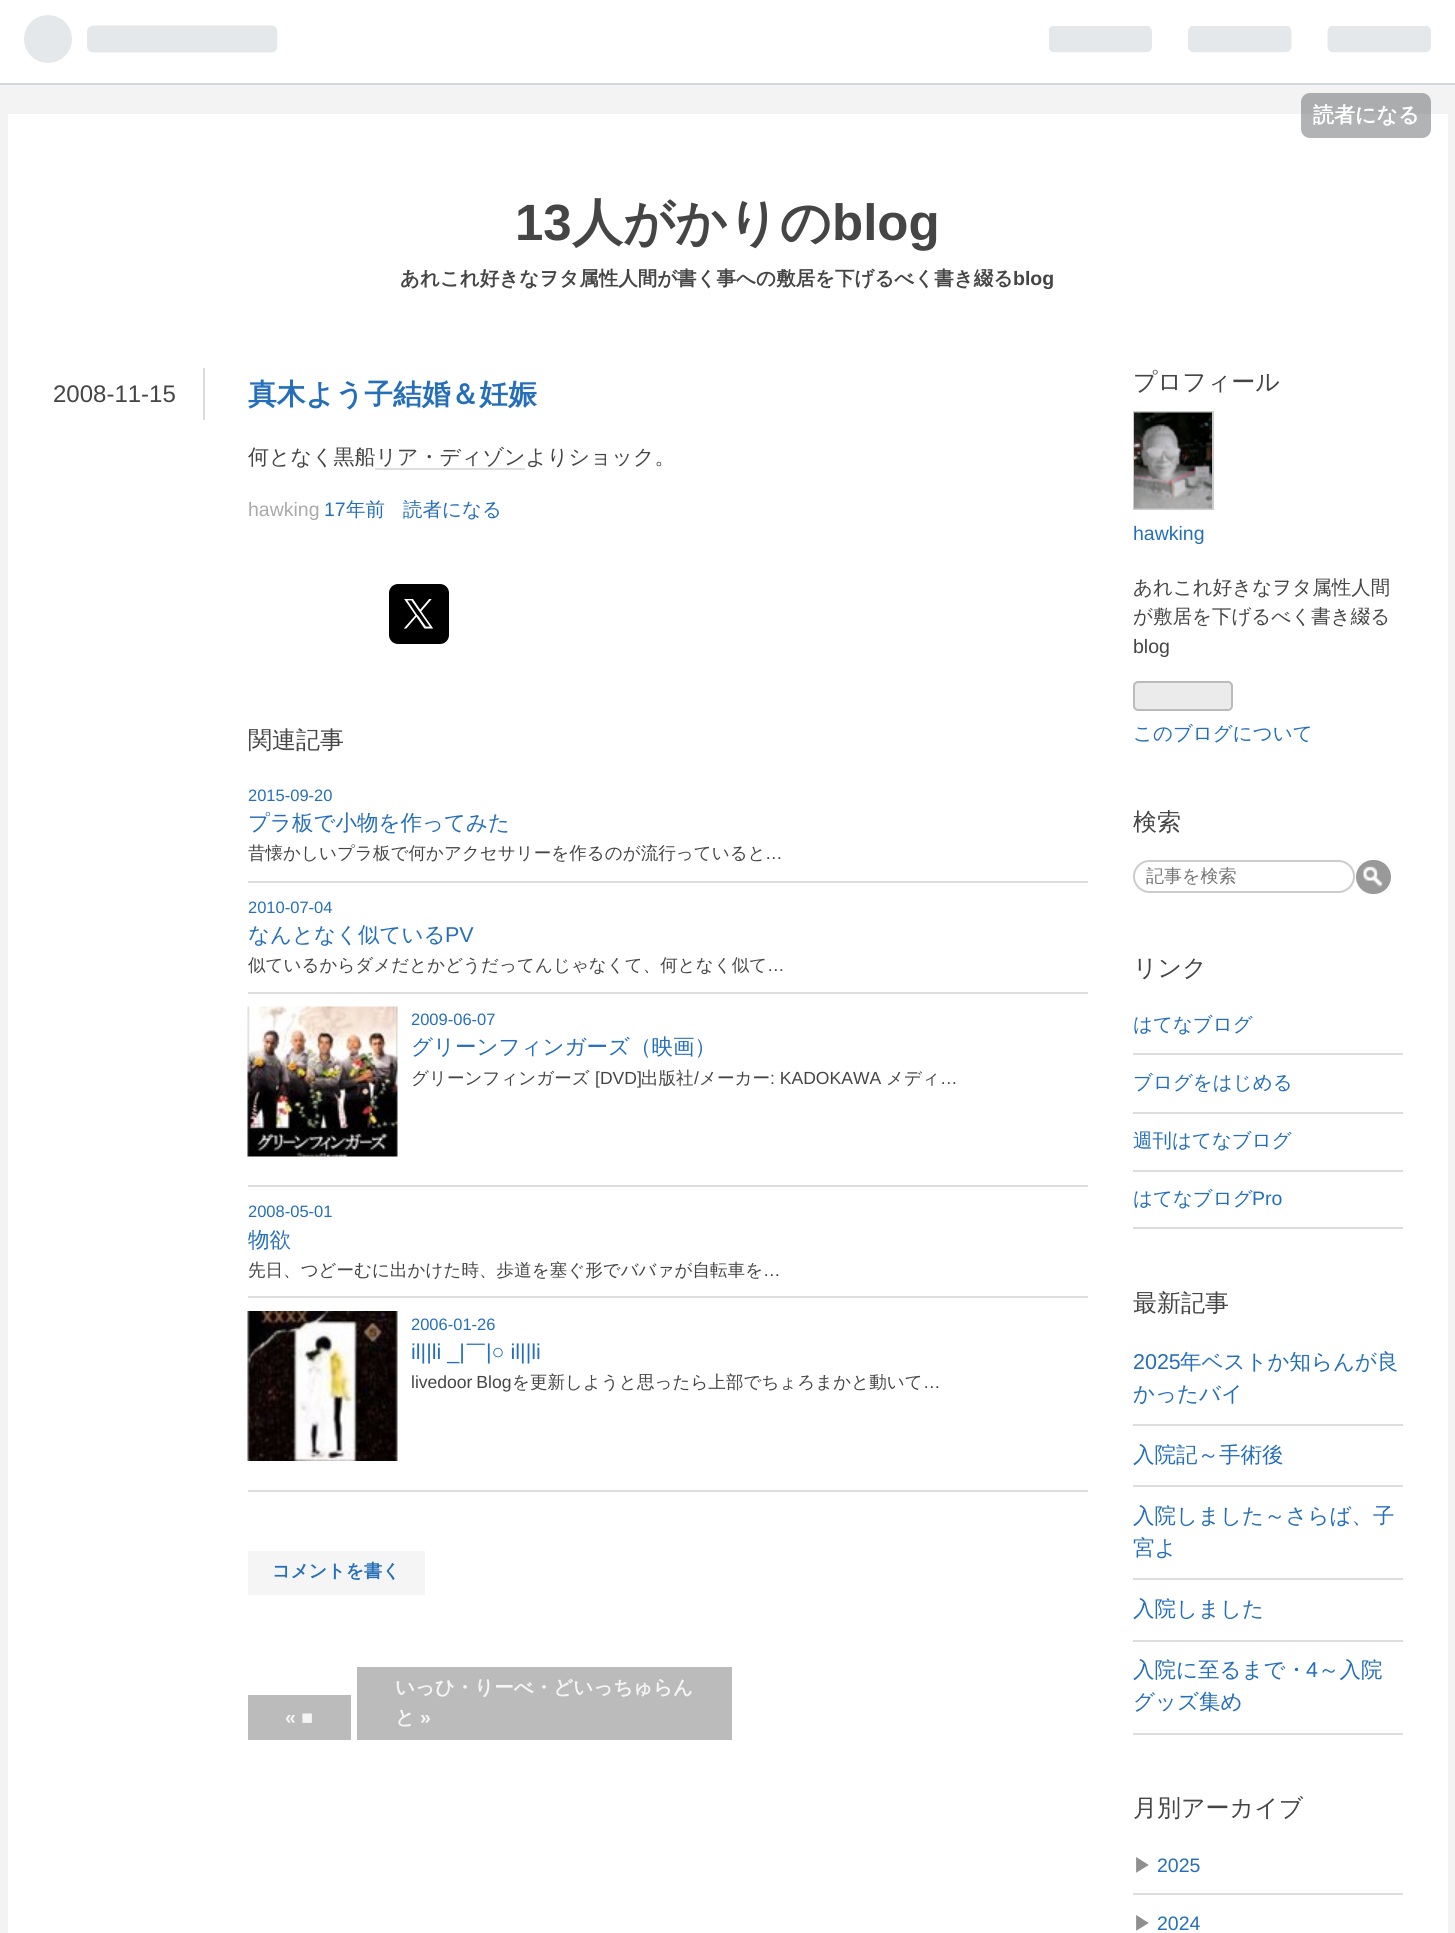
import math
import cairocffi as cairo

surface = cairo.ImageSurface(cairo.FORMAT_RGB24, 1455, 1933)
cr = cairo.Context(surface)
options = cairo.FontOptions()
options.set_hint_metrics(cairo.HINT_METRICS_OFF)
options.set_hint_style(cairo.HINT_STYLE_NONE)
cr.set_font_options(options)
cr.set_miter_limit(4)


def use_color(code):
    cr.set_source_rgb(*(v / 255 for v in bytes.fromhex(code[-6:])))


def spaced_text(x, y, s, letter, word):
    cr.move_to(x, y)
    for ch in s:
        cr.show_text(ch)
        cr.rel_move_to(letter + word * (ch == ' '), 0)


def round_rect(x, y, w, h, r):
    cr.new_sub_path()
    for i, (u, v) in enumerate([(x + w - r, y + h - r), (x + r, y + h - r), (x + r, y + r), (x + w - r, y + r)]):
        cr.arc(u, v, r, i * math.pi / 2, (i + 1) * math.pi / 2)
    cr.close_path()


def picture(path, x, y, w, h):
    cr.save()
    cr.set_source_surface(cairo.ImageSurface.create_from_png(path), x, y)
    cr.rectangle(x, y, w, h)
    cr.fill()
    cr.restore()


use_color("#f3f3f3")
cr.paint()
use_color("#ffffff")
cr.rectangle(0, 0, 1455, 83)
cr.fill()
use_color("#d2d8dd")
cr.rectangle(0, 83, 1455, 2)
cr.fill()
picture("img1.png", 24, 15, 254, 48)
picture("img2.png", 1049, 26, 382, 27)
use_color("#ffffff")
cr.rectangle(8, 114, 1440, 1819)
cr.fill()
cr.set_source_rgba(0.239, 0.259, 0.271, 0.4)
round_rect(1301, 93, 130, 45, 9)
cr.fill()
cr.select_font_face("WenQuanYi Zen Hei", cairo.FONT_SLANT_NORMAL, cairo.FONT_WEIGHT_BOLD)
cr.set_font_size(21)
use_color("#ffffff")
cr.move_to(1313, 122)
cr.show_text("読者になる")
cr.select_font_face("Liberation Sans", cairo.FONT_SLANT_NORMAL, cairo.FONT_WEIGHT_BOLD)
cr.set_font_size(51)
use_color("#454545")
cr.move_to(515, 240)
cr.show_text("13")
cr.select_font_face("WenQuanYi Zen Hei", cairo.FONT_SLANT_NORMAL, cairo.FONT_WEIGHT_BOLD)
cr.move_to(572, 240)
cr.show_text("人がかりの")
cr.select_font_face("Liberation Sans", cairo.FONT_SLANT_NORMAL, cairo.FONT_WEIGHT_BOLD)
cr.move_to(832, 240)
cr.show_text("blog")
cr.select_font_face("WenQuanYi Zen Hei", cairo.FONT_SLANT_NORMAL, cairo.FONT_WEIGHT_BOLD)
cr.set_font_size(19.5)
cr.move_to(400, 285)
cr.show_text("あれこれ好きなヲタ属性人間が書く事への敷居を下げるべく書き綴る")
cr.select_font_face("Liberation Sans", cairo.FONT_SLANT_NORMAL, cairo.FONT_WEIGHT_BOLD)
cr.move_to(1013, 285)
cr.show_text("blog")
use_color("#dddddd")
cr.rectangle(203, 368, 2, 52)
cr.fill()
cr.select_font_face("Liberation Sans")
cr.set_font_size(24)
use_color("#454545")
cr.move_to(53, 402)
cr.show_text("2008-11-15")
cr.select_font_face("WenQuanYi Zen Hei", cairo.FONT_SLANT_NORMAL, cairo.FONT_WEIGHT_BOLD)
cr.set_font_size(28.75)
use_color("#256fba")
cr.move_to(248, 404)
cr.show_text("真木よう子結婚＆妊娠")
cr.select_font_face("WenQuanYi Zen Hei Medium")
cr.set_font_size(21)
use_color("#454545")
cr.move_to(248, 464)
cr.show_text("何となく黒船リア・ディゾンよりショック。")
use_color("#dedede")
cr.rectangle(375, 468, 150, 2)
cr.fill()
cr.select_font_face("Liberation Sans")
cr.set_font_size(19.5)
use_color("#aaaaaa")
cr.move_to(248, 516)
cr.show_text("hawking")
use_color("#256fba")
cr.move_to(324, 516)
cr.show_text("17")
cr.select_font_face("WenQuanYi Zen Hei Medium")
cr.move_to(346, 516)
cr.show_text("年前")
cr.move_to(403, 516)
cr.show_text("読者になる")
use_color("#000000")
round_rect(389, 584, 60, 60, 9)
cr.fill()
picture("img3.png", 404, 599, 30, 30)
cr.set_font_size(24)
use_color("#454545")
cr.move_to(248, 748)
cr.show_text("関連記事")
use_color("#dddddd")
cr.rectangle(248, 881, 840, 2)
cr.fill()
cr.select_font_face("Liberation Sans")
cr.set_font_size(16.5)
use_color("#256fba")
cr.move_to(248, 801)
cr.show_text("2015-09-20")
cr.select_font_face("WenQuanYi Zen Hei Medium")
cr.set_font_size(21.5)
cr.move_to(248, 830)
cr.show_text("プラ板で小物を作ってみた")
cr.set_font_size(17.55)
use_color("#454545")
cr.move_to(248, 859)
cr.show_text("昔懐かしいプラ板で何かアクセサリーを作るのが流行っていると")
cr.select_font_face("Liberation Sans")
cr.move_to(765, 859)
cr.show_text("…")
use_color("#dddddd")
cr.rectangle(248, 992, 840, 2)
cr.fill()
cr.set_font_size(16.5)
use_color("#256fba")
cr.move_to(248, 913)
cr.show_text("2010-07-04")
cr.select_font_face("WenQuanYi Zen Hei Medium")
cr.set_font_size(21.5)
cr.move_to(248, 942)
cr.show_text("なんとなく似ている")
cr.select_font_face("Liberation Sans")
cr.move_to(445, 942)
cr.show_text("PV")
cr.select_font_face("WenQuanYi Zen Hei Medium")
cr.set_font_size(17.55)
use_color("#454545")
cr.move_to(248, 971)
cr.show_text("似ているからダメだとかどうだってんじゃなくて、何となく似て")
cr.select_font_face("Liberation Sans")
cr.move_to(767, 971)
cr.show_text("…")
use_color("#dddddd")
cr.rectangle(248, 1185, 840, 2)
cr.fill()
picture("img4.png", 247, 1006, 151, 151)
cr.set_font_size(16.5)
use_color("#256fba")
cr.move_to(411, 1025)
cr.show_text("2009-06-07")
cr.select_font_face("WenQuanYi Zen Hei Medium")
cr.set_font_size(21.5)
cr.move_to(411, 1054)
cr.show_text("グリーンフィンガーズ（映画）")
cr.set_font_size(17.55)
use_color("#454545")
cr.move_to(411, 1084)
cr.show_text("グリーンフィンガーズ")
cr.select_font_face("Liberation Sans")
cr.move_to(595, 1084)
cr.show_text("[DVD]")
cr.select_font_face("WenQuanYi Zen Hei Medium")
cr.move_to(641, 1084)
cr.show_text("出版社")
cr.select_font_face("Liberation Sans")
cr.move_to(694, 1084)
cr.show_text("/")
cr.select_font_face("WenQuanYi Zen Hei Medium")
cr.move_to(699, 1084)
cr.show_text("メーカー")
cr.select_font_face("Liberation Sans")
cr.move_to(770, 1084)
cr.show_text(": KADOKAWA")
cr.select_font_face("WenQuanYi Zen Hei Medium")
cr.move_to(886, 1084)
cr.show_text("メディ")
cr.select_font_face("Liberation Sans")
cr.move_to(940, 1084)
cr.show_text("…")
use_color("#dddddd")
cr.rectangle(248, 1296, 840, 2)
cr.fill()
cr.set_font_size(16.5)
use_color("#256fba")
cr.move_to(248, 1217)
cr.show_text("2008-05-01")
cr.select_font_face("WenQuanYi Zen Hei Medium")
cr.set_font_size(21.5)
cr.move_to(248, 1247)
cr.show_text("物欲")
cr.set_font_size(17.55)
use_color("#454545")
cr.move_to(248, 1276)
cr.show_text("先日、つどーむに出かけた時、歩道を塞ぐ形でババァが自転車を")
cr.select_font_face("Liberation Sans")
cr.move_to(763, 1276)
cr.show_text("…")
use_color("#dddddd")
cr.rectangle(248, 1490, 840, 2)
cr.fill()
picture("img5.png", 247, 1311, 151, 150)
cr.set_font_size(16.5)
use_color("#256fba")
cr.move_to(411, 1330)
cr.show_text("2006-01-26")
cr.set_font_size(21.5)
cr.move_to(411, 1359)
cr.show_text("il||li _|")
cr.select_font_face("WenQuanYi Zen Hei Medium")
cr.move_to(465, 1359)
cr.show_text("￣")
cr.select_font_face("Liberation Sans")
cr.move_to(486, 1359)
cr.show_text("|○ il||li")
cr.set_font_size(17.55)
use_color("#454545")
spaced_text(411, 1388, "livedoor Blog", 0, -1)
cr.select_font_face("WenQuanYi Zen Hei Medium")
cr.move_to(512, 1388)
cr.show_text("を更新しようと思ったら上部でちょろまかと動いて")
cr.select_font_face("Liberation Sans")
cr.move_to(923, 1388)
cr.show_text("…")
use_color("#f5f5f5")
cr.rectangle(248, 1551, 177, 44)
cr.fill()
cr.select_font_face("WenQuanYi Zen Hei", cairo.FONT_SLANT_NORMAL, cairo.FONT_WEIGHT_BOLD)
cr.set_font_size(18)
use_color("#256fba")
cr.move_to(272, 1577)
cr.show_text("コメントを書く")
use_color("#bbbbbb")
cr.rectangle(248, 1695, 103, 45)
cr.fill()
cr.select_font_face("Liberation Sans", cairo.FONT_SLANT_NORMAL, cairo.FONT_WEIGHT_BOLD)
cr.set_font_size(19.5)
use_color("#f5f5f5")
cr.move_to(285, 1724)
cr.show_text("« ■")
use_color("#bbbbbb")
cr.rectangle(357, 1667, 375, 73)
cr.fill()
cr.select_font_face("WenQuanYi Zen Hei", cairo.FONT_SLANT_NORMAL, cairo.FONT_WEIGHT_BOLD)
use_color("#f5f5f5")
cr.move_to(395, 1694)
cr.show_text("いっひ・りーべ・どいっちゅらん")
cr.move_to(395, 1724)
cr.show_text("と")
cr.select_font_face("Liberation Sans", cairo.FONT_SLANT_NORMAL, cairo.FONT_WEIGHT_BOLD)
cr.move_to(420, 1724)
cr.show_text("»")
cr.select_font_face("WenQuanYi Zen Hei Medium")
cr.set_font_size(24)
use_color("#454545")
cr.move_to(1133, 390)
cr.show_text("プロフィール")
cr.rectangle(1134, 412, 79, 97)
use_color("#cccccc")
cr.stroke()
picture("img6.png", 1134, 412, 78, 97)
cr.select_font_face("Liberation Sans")
cr.set_font_size(19.5)
use_color("#256fba")
cr.move_to(1133, 540)
cr.show_text("hawking")
cr.select_font_face("WenQuanYi Zen Hei Medium")
use_color("#454545")
cr.move_to(1133, 594)
cr.show_text("あれこれ好きなヲタ属性人間")
cr.move_to(1133, 623)
cr.show_text("が敷居を下げるべく書き綴る")
cr.select_font_face("Liberation Sans")
cr.move_to(1133, 653)
cr.show_text("blog")
use_color("#ebebeb")
round_rect(1134, 682, 98, 28, 4)
cr.fill_preserve()
use_color("#bbbbbb")
cr.stroke()
cr.select_font_face("WenQuanYi Zen Hei Medium")
use_color("#256fba")
cr.move_to(1133, 740)
cr.show_text("このブログについて")
cr.set_font_size(24)
use_color("#454545")
cr.move_to(1133, 830)
cr.show_text("検索")
round_rect(1134, 861, 220, 31, 15.5)
use_color("#cccccc")
cr.stroke()
cr.set_font_size(18)
use_color("#757575")
cr.move_to(1146, 882)
cr.show_text("記事を検索")
use_color("#999999")
round_rect(1356, 860, 35, 34, 17)
cr.fill()
picture("img7.png", 1363, 866, 20, 21)
cr.set_font_size(24)
use_color("#454545")
cr.move_to(1133, 976)
cr.show_text("リンク")
use_color("#dddddd")
cr.rectangle(1133, 1053, 270, 2)
cr.fill()
cr.set_font_size(19.5)
use_color("#256fba")
cr.move_to(1133, 1031)
cr.show_text("はてなブログ")
use_color("#dddddd")
cr.rectangle(1133, 1112, 270, 2)
cr.fill()
use_color("#256fba")
cr.move_to(1133, 1089)
cr.show_text("ブログをはじめる")
use_color("#dddddd")
cr.rectangle(1133, 1170, 270, 2)
cr.fill()
use_color("#256fba")
cr.move_to(1133, 1147)
cr.show_text("週刊はてなブログ")
use_color("#dddddd")
cr.rectangle(1133, 1227, 270, 2)
cr.fill()
use_color("#256fba")
cr.move_to(1133, 1205)
cr.show_text("はてなブログ")
cr.select_font_face("Liberation Sans")
cr.move_to(1252, 1205)
cr.show_text("Pro")
cr.select_font_face("WenQuanYi Zen Hei Medium")
cr.set_font_size(24)
use_color("#454545")
cr.move_to(1133, 1311)
cr.show_text("最新記事")
use_color("#dddddd")
cr.rectangle(1133, 1424, 270, 2)
cr.fill()
cr.select_font_face("Liberation Sans")
cr.set_font_size(21.5)
use_color("#256fba")
cr.move_to(1133, 1369)
cr.show_text("2025")
cr.select_font_face("WenQuanYi Zen Hei Medium")
cr.move_to(1180, 1369)
cr.show_text("年ベストか知らんが良")
cr.move_to(1133, 1401)
cr.show_text("かったバイ")
use_color("#dddddd")
cr.rectangle(1133, 1485, 270, 2)
cr.fill()
use_color("#256fba")
cr.move_to(1133, 1462)
cr.show_text("入院記～手術後")
use_color("#dddddd")
cr.rectangle(1133, 1578, 270, 2)
cr.fill()
use_color("#256fba")
cr.move_to(1133, 1523)
cr.show_text("入院しました～さらば、子")
cr.move_to(1133, 1555)
cr.show_text("宮よ")
use_color("#dddddd")
cr.rectangle(1133, 1640, 270, 2)
cr.fill()
use_color("#256fba")
cr.move_to(1133, 1616)
cr.show_text("入院しました")
use_color("#dddddd")
cr.rectangle(1133, 1733, 270, 2)
cr.fill()
use_color("#256fba")
cr.move_to(1133, 1677)
cr.show_text("入院に至るまで・")
cr.select_font_face("Liberation Sans")
cr.move_to(1306, 1677)
cr.show_text("4")
cr.select_font_face("WenQuanYi Zen Hei Medium")
cr.move_to(1318, 1677)
cr.show_text("～入院")
cr.move_to(1133, 1709)
cr.show_text("グッズ集め")
cr.set_font_size(24)
use_color("#454545")
cr.move_to(1133, 1816)
cr.show_text("月別アーカイブ")
use_color("#dddddd")
cr.rectangle(1133, 1893, 270, 2)
cr.fill()
cr.set_font_size(19.5)
use_color("#8f8f8f")
cr.move_to(1133, 1872)
cr.show_text("▶")
cr.select_font_face("Liberation Sans")
use_color("#256fba")
cr.move_to(1157, 1872)
cr.show_text("2025")
cr.select_font_face("WenQuanYi Zen Hei Medium")
use_color("#8f8f8f")
cr.move_to(1133, 1930)
cr.show_text("▶")
cr.select_font_face("Liberation Sans")
use_color("#256fba")
cr.move_to(1157, 1930)
cr.show_text("2024")
surface.write_to_png("result.png")
